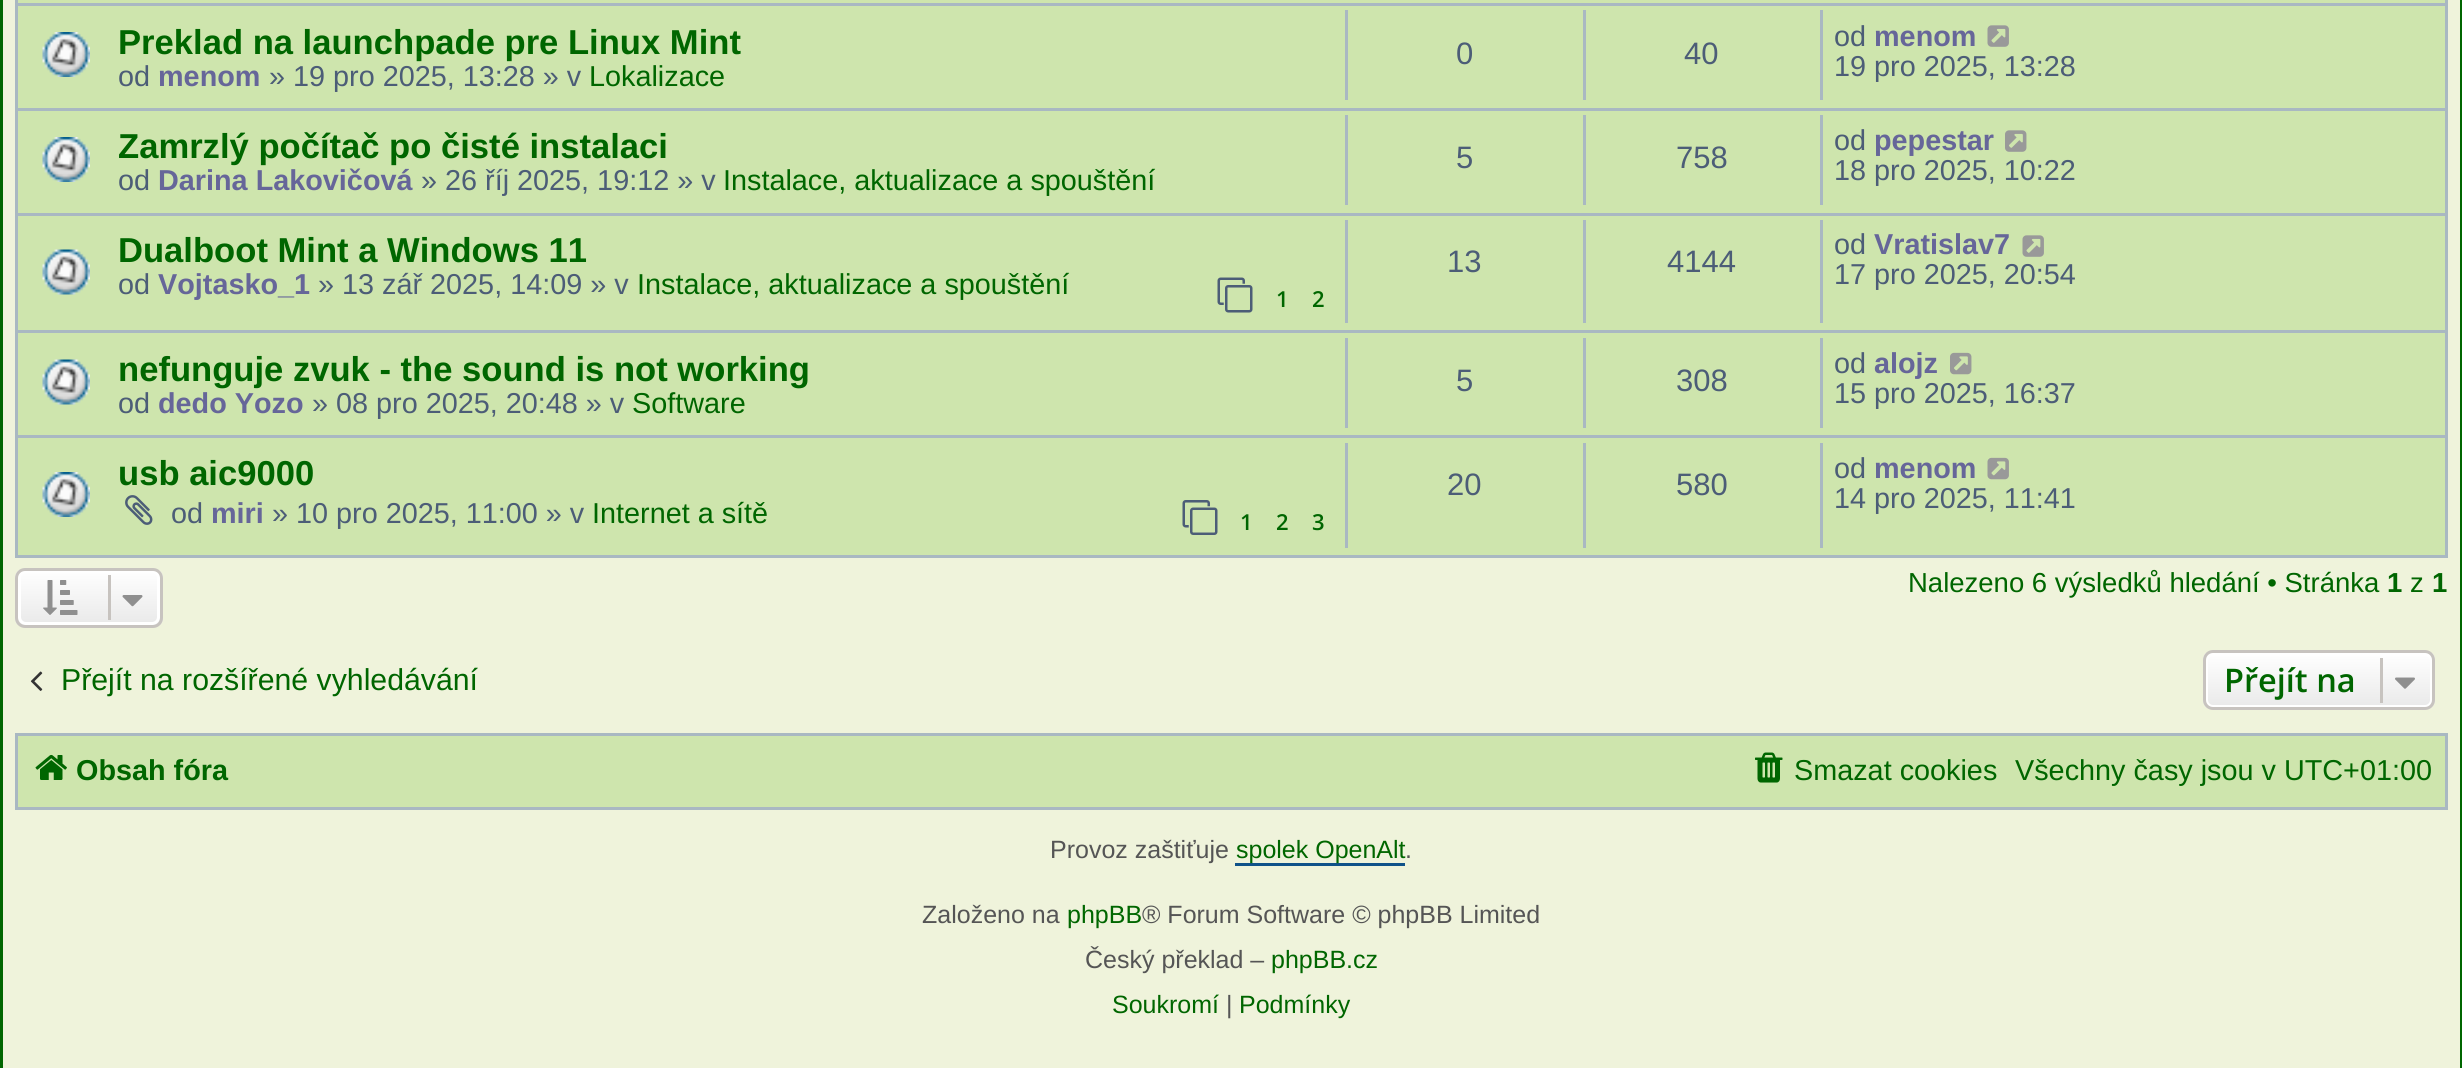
import math
import cairocffi as cairo

surface = cairo.ImageSurface(cairo.FORMAT_RGB24, 2462, 1068)
cr = cairo.Context(surface)
options = cairo.FontOptions()
options.set_hint_metrics(cairo.HINT_METRICS_OFF)
options.set_hint_style(cairo.HINT_STYLE_NONE)
cr.set_font_options(options)
cr.set_miter_limit(4)


def use_color(code):
    cr.set_source_rgb(*(v / 255 for v in bytes.fromhex(code[-6:])))


def round_rect(x, y, w, h, r):
    cr.new_sub_path()
    for i, (u, v) in enumerate([(x + w - r, y + h - r), (x + r, y + h - r), (x + r, y + r), (x + w - r, y + r)]):
        cr.arc(u, v, r, i * math.pi / 2, (i + 1) * math.pi / 2)
    cr.close_path()


def picture(path, x, y, w, h):
    cr.save()
    cr.set_source_surface(cairo.ImageSurface.create_from_png(path), x, y)
    cr.rectangle(x, y, w, h)
    cr.fill()
    cr.restore()


use_color("#eff3db")
cr.paint()
use_color("#006600")
cr.rectangle(2460, 0, 2, 1068)
cr.fill()
cr.rectangle(0, 0, 3, 1068)
cr.fill()
cr.rectangle(16.5, -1.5, 2430, 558)
use_color("#a9b8c2")
cr.set_line_width(3)
cr.stroke()
use_color("#cee5ad")
cr.rectangle(18, 0, 2427, 3)
cr.fill()
cr.rectangle(18, 6, 2427, 102)
cr.fill()
use_color("#a9b8c2")
cr.rectangle(18, 3, 2427, 3)
cr.fill()
picture("img1.png", 42, 32, 48, 45)
cr.select_font_face("Liberation Sans", cairo.FONT_SLANT_NORMAL, cairo.FONT_WEIGHT_BOLD)
cr.set_font_size(34.6)
use_color("#006600")
cr.move_to(118, 54)
cr.show_text("Preklad na launchpade pre Linux Mint")
cr.select_font_face("Liberation Sans")
cr.set_font_size(28.8)
use_color("#4c5d77")
cr.move_to(118, 86)
cr.show_text("od")
cr.select_font_face("Liberation Sans", cairo.FONT_SLANT_NORMAL, cairo.FONT_WEIGHT_BOLD)
use_color("#666699")
cr.move_to(158, 86)
cr.show_text("menom")
cr.select_font_face("Liberation Sans")
use_color("#4c5d77")
cr.move_to(269, 86)
cr.show_text("» 19 pro 2025, 13:28 » v")
use_color("#006600")
cr.move_to(589, 86)
cr.show_text("Lokalizace")
use_color("#a9b8c2")
cr.rectangle(1345, 10, 3, 90)
cr.fill()
cr.set_font_size(31)
use_color("#4c5d77")
cr.move_to(1456, 64)
cr.show_text("0")
use_color("#a9b8c2")
cr.rectangle(1583, 10, 3, 90)
cr.fill()
use_color("#4c5d77")
cr.move_to(1684, 64)
cr.show_text("40")
use_color("#a9b8c2")
cr.rectangle(1820, 10, 3, 90)
cr.fill()
cr.set_font_size(28.8)
use_color("#4c5d77")
cr.move_to(1834, 46)
cr.show_text("od")
cr.select_font_face("Liberation Sans", cairo.FONT_SLANT_NORMAL, cairo.FONT_WEIGHT_BOLD)
use_color("#666699")
cr.move_to(1874, 46)
cr.show_text("menom")
picture("img2.png", 1987, 25, 22, 22)
cr.select_font_face("Liberation Sans")
use_color("#4c5d77")
cr.move_to(1834, 76)
cr.show_text("19 pro 2025, 13:28")
use_color("#cee5ad")
cr.rectangle(18, 111, 2427, 102)
cr.fill()
use_color("#a9b8c2")
cr.rectangle(18, 108, 2427, 3)
cr.fill()
picture("img1.png", 42, 137, 48, 45)
cr.select_font_face("Liberation Sans", cairo.FONT_SLANT_NORMAL, cairo.FONT_WEIGHT_BOLD)
cr.set_font_size(34.6)
use_color("#006600")
cr.move_to(118, 158)
cr.show_text("Zamrzlý počítač po čisté instalaci")
cr.select_font_face("Liberation Sans")
cr.set_font_size(28.8)
use_color("#4c5d77")
cr.move_to(118, 190)
cr.show_text("od")
cr.select_font_face("Liberation Sans", cairo.FONT_SLANT_NORMAL, cairo.FONT_WEIGHT_BOLD)
use_color("#666699")
cr.move_to(158, 190)
cr.show_text("Darina Lakovičová")
cr.select_font_face("Liberation Sans")
use_color("#4c5d77")
cr.move_to(421, 190)
cr.show_text("» 26 říj 2025, 19:12 » v")
use_color("#006600")
cr.move_to(723, 190)
cr.show_text("Instalace, aktualizace a spouštění")
use_color("#a9b8c2")
cr.rectangle(1345, 115, 3, 90)
cr.fill()
cr.set_font_size(31)
use_color("#4c5d77")
cr.move_to(1456, 168)
cr.show_text("5")
use_color("#a9b8c2")
cr.rectangle(1583, 115, 3, 90)
cr.fill()
use_color("#4c5d77")
cr.move_to(1676, 168)
cr.show_text("758")
use_color("#a9b8c2")
cr.rectangle(1820, 115, 3, 90)
cr.fill()
cr.set_font_size(28.8)
use_color("#4c5d77")
cr.move_to(1834, 150)
cr.show_text("od")
cr.select_font_face("Liberation Sans", cairo.FONT_SLANT_NORMAL, cairo.FONT_WEIGHT_BOLD)
use_color("#666699")
cr.move_to(1874, 150)
cr.show_text("pepestar")
picture("img3.png", 2005, 130, 22, 22)
cr.select_font_face("Liberation Sans")
use_color("#4c5d77")
cr.move_to(1834, 180)
cr.show_text("18 pro 2025, 10:22")
use_color("#cee5ad")
cr.rectangle(18, 216, 2427, 114)
cr.fill()
use_color("#a9b8c2")
cr.rectangle(18, 213, 2427, 3)
cr.fill()
picture("img4.png", 42, 249, 48, 46)
cr.select_font_face("Liberation Sans", cairo.FONT_SLANT_NORMAL, cairo.FONT_WEIGHT_BOLD)
cr.set_font_size(34.6)
use_color("#006600")
cr.move_to(118, 262)
cr.show_text("Dualboot Mint a Windows 11")
cr.select_font_face("Liberation Sans")
cr.set_font_size(28.8)
use_color("#4c5d77")
cr.move_to(118, 294)
cr.show_text("od")
cr.select_font_face("Liberation Sans", cairo.FONT_SLANT_NORMAL, cairo.FONT_WEIGHT_BOLD)
use_color("#666699")
cr.move_to(158, 294)
cr.show_text("Vojtasko_1")
cr.select_font_face("Liberation Sans")
use_color("#4c5d77")
cr.move_to(318, 294)
cr.show_text("» 13 zář 2025, 14:09 » v")
use_color("#006600")
cr.move_to(637, 294)
cr.show_text("Instalace, aktualizace a spouštění")
picture("img5.png", 1217, 277, 36, 36)
cr.select_font_face("Open Sans SemiBold")
cr.set_font_size(22)
cr.move_to(1276, 307)
cr.show_text("1")
cr.move_to(1312, 307)
cr.show_text("2")
use_color("#a9b8c2")
cr.rectangle(1345, 220, 3, 103)
cr.fill()
cr.select_font_face("Liberation Sans")
cr.set_font_size(31)
use_color("#4c5d77")
cr.move_to(1447, 272)
cr.show_text("13")
use_color("#a9b8c2")
cr.rectangle(1583, 220, 3, 103)
cr.fill()
use_color("#4c5d77")
cr.move_to(1667, 272)
cr.show_text("4144")
use_color("#a9b8c2")
cr.rectangle(1820, 220, 3, 103)
cr.fill()
cr.set_font_size(28.8)
use_color("#4c5d77")
cr.move_to(1834, 254)
cr.show_text("od")
cr.select_font_face("Liberation Sans", cairo.FONT_SLANT_NORMAL, cairo.FONT_WEIGHT_BOLD)
use_color("#666699")
cr.move_to(1874, 254)
cr.show_text("Vratislav7")
picture("img2.png", 2022, 235, 22, 22)
cr.select_font_face("Liberation Sans")
use_color("#4c5d77")
cr.move_to(1834, 284)
cr.show_text("17 pro 2025, 20:54")
use_color("#cee5ad")
cr.rectangle(18, 333, 2427, 102)
cr.fill()
use_color("#a9b8c2")
cr.rectangle(18, 330, 2427, 3)
cr.fill()
picture("img4.png", 42, 359, 48, 46)
cr.select_font_face("Liberation Sans", cairo.FONT_SLANT_NORMAL, cairo.FONT_WEIGHT_BOLD)
cr.set_font_size(34.6)
use_color("#006600")
cr.move_to(118, 381)
cr.show_text("nefunguje zvuk - the sound is not working")
cr.select_font_face("Liberation Sans")
cr.set_font_size(28.8)
use_color("#4c5d77")
cr.move_to(118, 413)
cr.show_text("od")
cr.select_font_face("Liberation Sans", cairo.FONT_SLANT_NORMAL, cairo.FONT_WEIGHT_BOLD)
use_color("#666699")
cr.move_to(158, 413)
cr.show_text("dedo Yozo")
cr.select_font_face("Liberation Sans")
use_color("#4c5d77")
cr.move_to(312, 413)
cr.show_text("» 08 pro 2025, 20:48 » v")
use_color("#006600")
cr.move_to(632, 413)
cr.show_text("Software")
use_color("#a9b8c2")
cr.rectangle(1345, 338, 3, 90)
cr.fill()
cr.set_font_size(31)
use_color("#4c5d77")
cr.move_to(1456, 391)
cr.show_text("5")
use_color("#a9b8c2")
cr.rectangle(1583, 338, 3, 90)
cr.fill()
use_color("#4c5d77")
cr.move_to(1676, 391)
cr.show_text("308")
use_color("#a9b8c2")
cr.rectangle(1820, 338, 3, 90)
cr.fill()
cr.set_font_size(28.8)
use_color("#4c5d77")
cr.move_to(1834, 373)
cr.show_text("od")
cr.select_font_face("Liberation Sans", cairo.FONT_SLANT_NORMAL, cairo.FONT_WEIGHT_BOLD)
use_color("#666699")
cr.move_to(1874, 373)
cr.show_text("alojz")
picture("img6.png", 1950, 352, 22, 23)
cr.select_font_face("Liberation Sans")
use_color("#4c5d77")
cr.move_to(1834, 403)
cr.show_text("15 pro 2025, 16:37")
use_color("#cee5ad")
cr.rectangle(18, 438, 2427, 117)
cr.fill()
use_color("#a9b8c2")
cr.rectangle(18, 435, 2427, 3)
cr.fill()
picture("img1.png", 42, 472, 48, 45)
cr.select_font_face("Liberation Sans", cairo.FONT_SLANT_NORMAL, cairo.FONT_WEIGHT_BOLD)
cr.set_font_size(34.6)
use_color("#006600")
cr.move_to(118, 485)
cr.show_text("usb aic9000")
picture("img7.png", 125, 495, 28, 30)
cr.select_font_face("Liberation Sans")
cr.set_font_size(28.8)
use_color("#4c5d77")
cr.move_to(171, 523)
cr.show_text("od")
cr.select_font_face("Liberation Sans", cairo.FONT_SLANT_NORMAL, cairo.FONT_WEIGHT_BOLD)
use_color("#666699")
cr.move_to(211, 523)
cr.show_text("miri")
cr.select_font_face("Liberation Sans")
use_color("#4c5d77")
cr.move_to(272, 523)
cr.show_text("» 10 pro 2025, 11:00 » v")
use_color("#006600")
cr.move_to(592, 523)
cr.show_text("Internet a sítě")
picture("img8.png", 1182, 500, 36, 35)
cr.select_font_face("Open Sans SemiBold")
cr.set_font_size(22)
cr.move_to(1240, 530)
cr.show_text("1")
cr.move_to(1276, 530)
cr.show_text("2")
cr.move_to(1312, 530)
cr.show_text("3")
use_color("#a9b8c2")
cr.rectangle(1345, 443, 3, 105)
cr.fill()
cr.select_font_face("Liberation Sans")
cr.set_font_size(31)
use_color("#4c5d77")
cr.move_to(1447, 495)
cr.show_text("20")
use_color("#a9b8c2")
cr.rectangle(1583, 443, 3, 105)
cr.fill()
use_color("#4c5d77")
cr.move_to(1676, 495)
cr.show_text("580")
use_color("#a9b8c2")
cr.rectangle(1820, 443, 3, 105)
cr.fill()
cr.set_font_size(28.8)
use_color("#4c5d77")
cr.move_to(1834, 478)
cr.show_text("od")
cr.select_font_face("Liberation Sans", cairo.FONT_SLANT_NORMAL, cairo.FONT_WEIGHT_BOLD)
use_color("#666699")
cr.move_to(1874, 478)
cr.show_text("menom")
picture("img9.png", 1987, 457, 22, 23)
cr.select_font_face("Liberation Sans")
use_color("#4c5d77")
cr.move_to(1834, 508)
cr.show_text("14 pro 2025, 11:41")
cr.save()
round_rect(15, 568, 148, 60, 10)
cr.clip()
gradient = cairo.LinearGradient(89, 570, 89, 625)
gradient.add_color_stop_rgba(0, 1, 1, 1, 1)
gradient.add_color_stop_rgba(1, 0.914, 0.914, 0.914, 1)
cr.set_source(gradient)
cr.rectangle(15, 570, 148, 55)
cr.fill()
cr.restore()
round_rect(19.5, 571.5, 139, 52, 6.5)
use_color("#ffffff")
cr.stroke()
round_rect(16.5, 569.5, 145, 57, 8.5)
use_color("#c7c3bf")
cr.stroke()
picture("img10.png", 43, 580, 35, 35)
cr.rectangle(108, 575, 3, 45)
cr.fill()
picture("img11.png", 122, 595, 21, 12)
cr.set_font_size(27.5)
use_color("#006600")
cr.move_to(1908, 592)
cr.show_text("Nalezeno 6 výsledků hledání • Stránka")
cr.select_font_face("Liberation Sans", cairo.FONT_SLANT_NORMAL, cairo.FONT_WEIGHT_BOLD)
cr.move_to(2387, 592)
cr.show_text("1")
cr.select_font_face("Liberation Sans")
cr.move_to(2410, 592)
cr.show_text("z")
cr.select_font_face("Liberation Sans", cairo.FONT_SLANT_NORMAL, cairo.FONT_WEIGHT_BOLD)
cr.move_to(2432, 592)
cr.show_text("1")
picture("img12.png", 30, 671, 13, 20)
cr.select_font_face("Liberation Sans")
cr.set_font_size(30.25)
cr.move_to(61, 690)
cr.show_text("Přejít na rozšířené vyhledávání")
cr.save()
round_rect(2203, 650, 232, 60, 10)
cr.clip()
gradient = cairo.LinearGradient(2319, 653, 2319, 708)
gradient.add_color_stop_rgba(0, 1, 1, 1, 1)
gradient.add_color_stop_rgba(1, 0.914, 0.914, 0.914, 1)
cr.set_source(gradient)
cr.rectangle(2203, 653, 232, 55)
cr.fill()
cr.restore()
round_rect(2206.5, 654.5, 225, 52, 6.5)
use_color("#ffffff")
cr.stroke()
round_rect(2204.5, 651.5, 229, 57, 8.5)
use_color("#c7c3bf")
cr.stroke()
cr.select_font_face("Open Sans SemiBold")
cr.set_font_size(32.5)
use_color("#006600")
cr.move_to(2224, 692)
cr.show_text("Přejít na")
use_color("#c7c3bf")
cr.rectangle(2380, 658, 3, 45)
cr.fill()
picture("img13.png", 2395, 677, 20, 12)
use_color("#cee5ad")
cr.rectangle(16.5, 734.5, 2430, 74)
cr.fill_preserve()
use_color("#a9b8c2")
cr.stroke()
picture("img14.png", 35, 754, 32, 26)
cr.select_font_face("Liberation Sans", cairo.FONT_SLANT_NORMAL, cairo.FONT_WEIGHT_BOLD)
cr.set_font_size(28.8)
use_color("#006600")
cr.move_to(76, 780)
cr.show_text("Obsah fóra")
picture("img15.png", 1755, 752, 28, 31)
cr.select_font_face("Liberation Sans")
cr.move_to(1794, 780)
cr.show_text("Smazat cookies")
cr.move_to(2015, 780)
cr.show_text("Všechny časy jsou v UTC+01:00")
cr.set_font_size(25)
use_color("#555555")
cr.move_to(1050, 858)
cr.show_text("Provoz zaštiťuje")
use_color("#105289")
cr.rectangle(1235, 863, 170, 3)
cr.fill()
use_color("#006600")
cr.move_to(1236, 858)
cr.show_text("spolek OpenAlt")
use_color("#555555")
cr.move_to(1405, 858)
cr.show_text(".")
cr.move_to(922, 923)
cr.show_text("Založeno na")
use_color("#006600")
cr.move_to(1067, 923)
cr.show_text("phpBB")
use_color("#555555")
cr.move_to(1142, 923)
cr.show_text("® Forum Software © phpBB Limited")
cr.move_to(1085, 968)
cr.show_text("Český překlad –")
use_color("#006600")
cr.move_to(1271, 968)
cr.show_text("phpBB.cz")
cr.move_to(1112, 1013)
cr.show_text("Soukromí")
use_color("#555555")
cr.move_to(1226, 1013)
cr.show_text("|")
use_color("#006600")
cr.move_to(1239, 1013)
cr.show_text("Podmínky")
surface.write_to_png("result.png")
